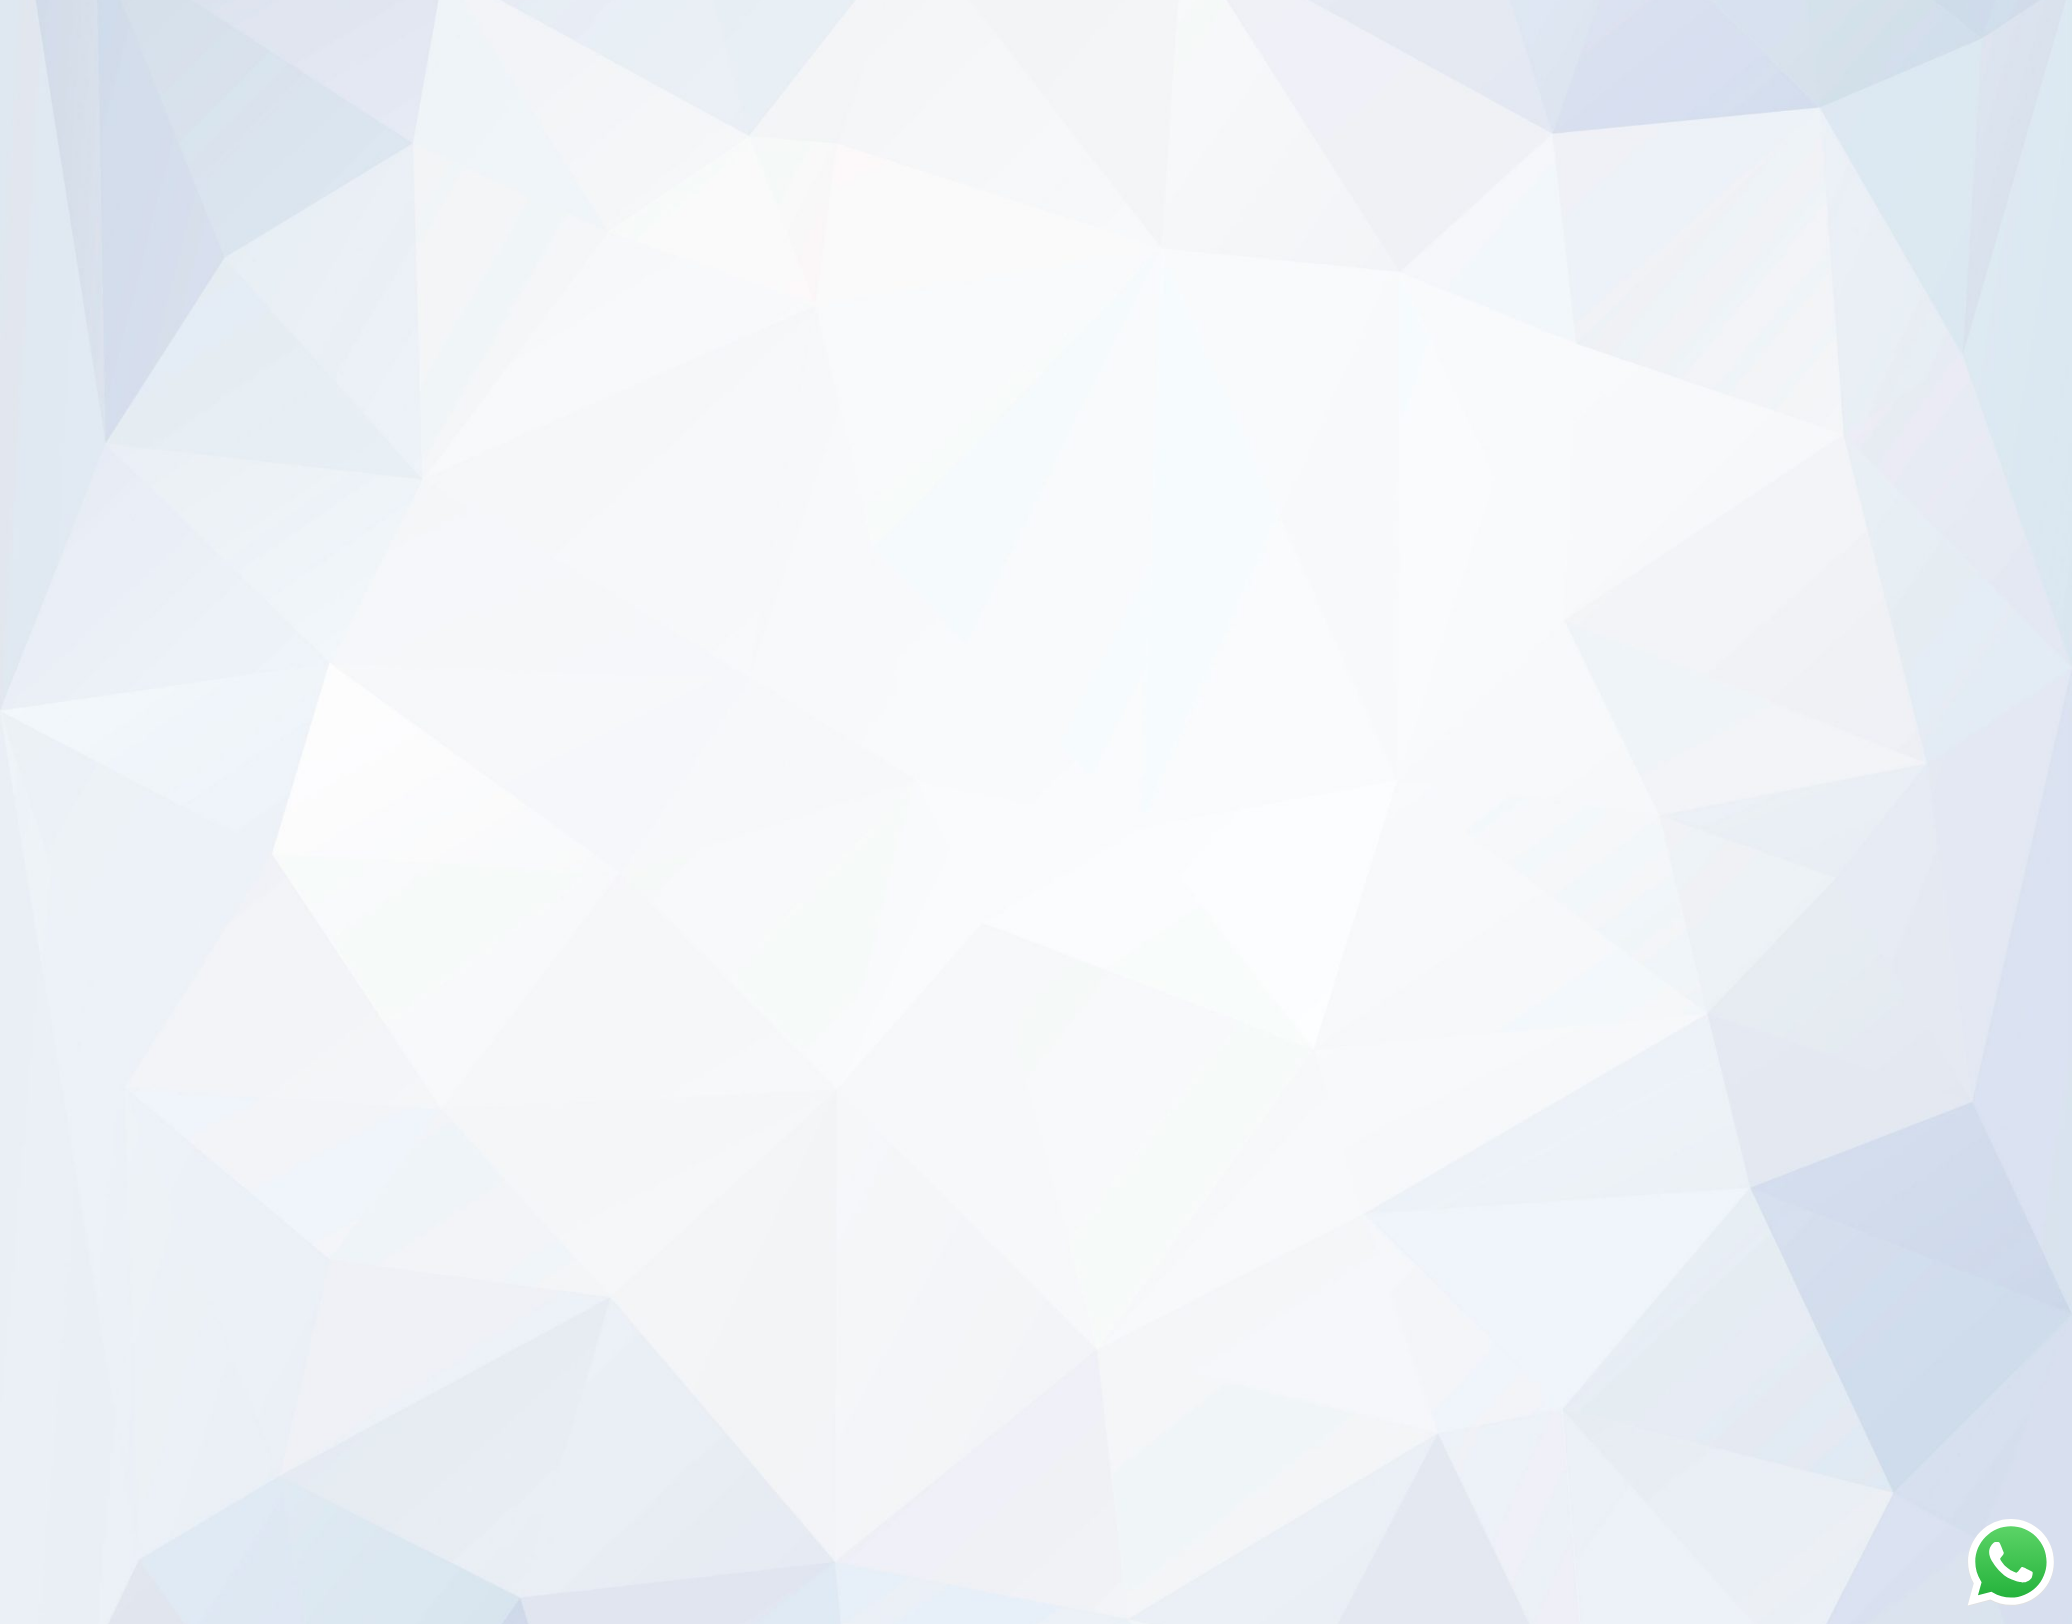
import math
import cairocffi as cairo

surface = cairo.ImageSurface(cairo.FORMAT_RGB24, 2072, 1624)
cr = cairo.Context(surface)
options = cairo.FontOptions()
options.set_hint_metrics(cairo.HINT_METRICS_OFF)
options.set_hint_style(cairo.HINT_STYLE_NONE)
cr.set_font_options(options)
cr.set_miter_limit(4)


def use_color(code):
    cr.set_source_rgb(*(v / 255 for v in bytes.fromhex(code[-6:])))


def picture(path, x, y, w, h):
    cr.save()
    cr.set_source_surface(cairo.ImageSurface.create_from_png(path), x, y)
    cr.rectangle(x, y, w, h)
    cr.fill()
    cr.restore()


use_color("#ffffff")
cr.paint()
picture("img1.png", 0, 0, 2072, 1624)
picture("img2.png", 1967, 1519, 87, 87)
surface.write_to_png("result.png")
